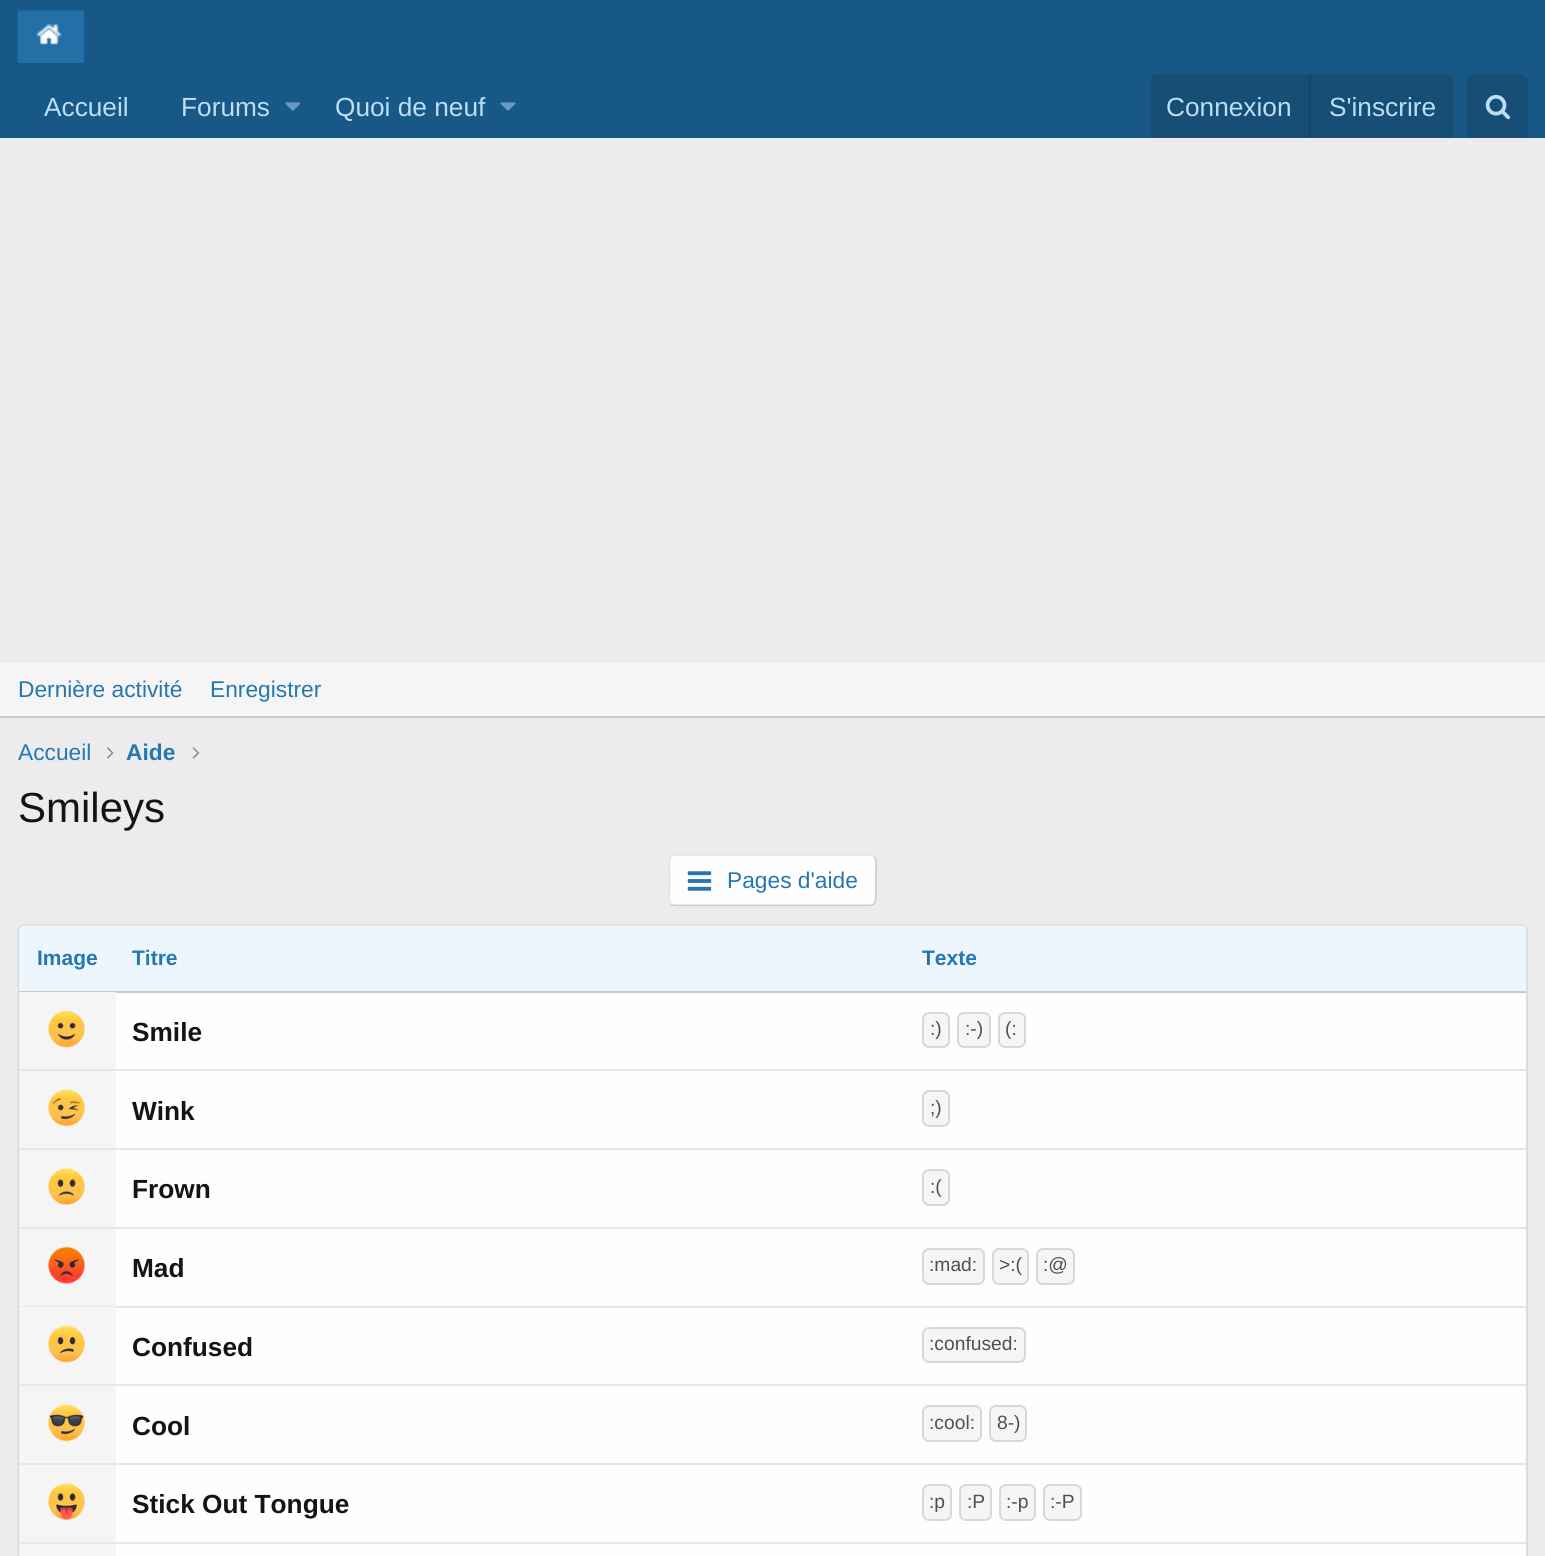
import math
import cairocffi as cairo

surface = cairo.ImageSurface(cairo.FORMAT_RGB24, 1545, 1556)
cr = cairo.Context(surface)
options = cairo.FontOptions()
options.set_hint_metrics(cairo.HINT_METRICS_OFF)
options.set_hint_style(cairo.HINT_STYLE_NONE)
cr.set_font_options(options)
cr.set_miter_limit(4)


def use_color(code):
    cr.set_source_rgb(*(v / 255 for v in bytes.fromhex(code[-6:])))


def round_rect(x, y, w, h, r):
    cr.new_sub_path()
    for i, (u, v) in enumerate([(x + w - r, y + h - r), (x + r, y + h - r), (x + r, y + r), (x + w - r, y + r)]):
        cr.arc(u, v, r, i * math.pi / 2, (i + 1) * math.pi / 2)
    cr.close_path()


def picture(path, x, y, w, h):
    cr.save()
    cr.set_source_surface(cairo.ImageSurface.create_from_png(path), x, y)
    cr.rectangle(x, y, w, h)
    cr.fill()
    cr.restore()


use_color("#ececec")
cr.paint()
use_color("#185886")
cr.rectangle(0, 0, 1545, 138)
cr.fill()
picture("img1.png", 17, 10, 68, 53)
cr.select_font_face("Liberation Sans")
cr.set_font_size(26.25)
use_color("#bcdef5")
cr.move_to(44, 116)
cr.show_text("Accueil")
cr.move_to(181, 116)
cr.show_text("Forums")
picture("img2.png", 285, 102, 16, 9)
cr.move_to(335, 116)
cr.show_text("Quoi de neuf")
picture("img3.png", 500, 102, 16, 9)
use_color("#174e75")
cr.new_path()
cr.move_to(1157, 74)
cr.line_to(1446, 74)
cr.curve_to(1450, 74, 1453, 77, 1453, 81)
cr.line_to(1453, 138)
cr.line_to(1150, 138)
cr.line_to(1150, 81)
cr.curve_to(1150, 77, 1153, 74, 1157, 74)
cr.close_path()
cr.fill()
use_color("#bcdef5")
cr.move_to(1166, 116)
cr.show_text("Connexion")
use_color("#174566")
cr.rectangle(1309, 74, 2, 64)
cr.fill()
use_color("#bcdef5")
cr.move_to(1329, 116)
cr.show_text("S'inscrire")
use_color("#174e75")
cr.new_path()
cr.move_to(1474, 74)
cr.line_to(1521, 74)
cr.curve_to(1525, 74, 1528, 77, 1528, 81)
cr.line_to(1528, 138)
cr.line_to(1467, 138)
cr.line_to(1467, 81)
cr.curve_to(1467, 77, 1470, 74, 1474, 74)
cr.close_path()
cr.fill()
picture("img4.png", 1485, 94, 26, 26)
use_color("#f5f5f5")
cr.rectangle(0, 663, 1545, 53)
cr.fill()
use_color("#cbcbcb")
cr.rectangle(0, 716, 1545, 2)
cr.fill()
cr.set_font_size(22.75)
use_color("#2577b1")
cr.move_to(18, 697)
cr.show_text("Dernière activité")
cr.move_to(210, 697)
cr.show_text("Enregistrer")
cr.move_to(18, 760)
cr.show_text("Accueil")
picture("img5.png", 107, 747, 7, 12)
cr.select_font_face("Liberation Sans", cairo.FONT_SLANT_NORMAL, cairo.FONT_WEIGHT_BOLD)
cr.move_to(126, 760)
cr.show_text("Aide")
picture("img6.png", 192, 747, 8, 12)
cr.select_font_face("Liberation Sans")
cr.set_font_size(42)
use_color("#141414")
cr.move_to(18, 822)
cr.show_text("Smileys")
use_color("#fefefe")
round_rect(669, 854, 208, 53, 7)
cr.fill()
cr.new_path()
cr.move_to(874, 856.5)
cr.curve_to(877, 859.5, 876, 864, 876, 867.5)
cr.line_to(876, 893)
cr.curve_to(876, 898, 876.5, 905.5, 870, 905.5)
cr.line_to(675, 905.5)
cr.curve_to(673.5, 905.5, 672, 905, 671, 904)
use_color("#cbcbcb")
cr.set_line_width(1.8)
cr.stroke()
cr.new_path()
cr.move_to(671, 904)
cr.curve_to(668.5, 901, 669.5, 896.5, 669.5, 893)
cr.line_to(669.5, 867.5)
cr.curve_to(669.5, 862.5, 668.5, 855, 675.5, 855)
cr.line_to(870.5, 855)
cr.curve_to(872, 855, 873, 855.5, 874, 856.5)
use_color("#e5e5e5")
cr.stroke()
picture("img7.png", 687, 871, 25, 20)
cr.set_font_size(22.75)
use_color("#2577b1")
cr.move_to(727, 888)
cr.show_text("Pages d'aide")
use_color("#fefefe")
round_rect(18, 924, 1510, 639, 7)
cr.fill()
cr.new_path()
cr.move_to(20, 926.5)
cr.curve_to(21.5, 925.5, 23, 925, 24.5, 925)
cr.line_to(1521, 925)
cr.curve_to(1522.5, 925, 1524, 925.5, 1525, 926.5)
use_color("#dfdfdf")
cr.stroke()
cr.new_path()
cr.move_to(1525, 926.5)
cr.curve_to(1526, 928, 1527, 929.5, 1527, 931)
cr.line_to(1527, 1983)
cr.curve_to(1527, 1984.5, 1526, 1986, 1525, 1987)
use_color("#d8d8d8")
cr.stroke()
cr.new_path()
cr.move_to(20, 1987)
cr.curve_to(19, 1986, 18.5, 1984.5, 18.5, 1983)
cr.line_to(18.5, 931)
cr.curve_to(18.5, 929.5, 19, 928, 20, 926.5)
cr.stroke()
use_color("#edf6fd")
cr.new_path()
cr.move_to(24, 926)
cr.line_to(116, 926)
cr.line_to(116, 992)
cr.line_to(19, 992)
cr.line_to(19, 931)
cr.curve_to(19, 928, 21, 926, 24, 926)
cr.close_path()
cr.fill()
use_color("#cbcbcb")
cr.rectangle(19, 991, 97, 1)
cr.fill()
cr.select_font_face("Liberation Sans", cairo.FONT_SLANT_NORMAL, cairo.FONT_WEIGHT_BOLD)
cr.set_font_size(21)
use_color("#2577b1")
cr.move_to(37, 965)
cr.show_text("Image")
use_color("#edf6fd")
cr.rectangle(116, 926, 789, 65)
cr.fill()
use_color("#cbcbcb")
cr.rectangle(116, 991, 789, 2)
cr.fill()
use_color("#2577b1")
cr.move_to(132, 965)
cr.show_text("Titre")
use_color("#edf6fd")
cr.new_path()
cr.move_to(905, 926)
cr.line_to(1521, 926)
cr.curve_to(1524, 926, 1526, 928, 1526, 931)
cr.line_to(1526, 992)
cr.line_to(905, 992)
cr.close_path()
cr.fill()
use_color("#cbcbcb")
cr.rectangle(905, 991, 621, 2)
cr.fill()
use_color("#2577b1")
cr.move_to(922, 965)
cr.show_text("Texte")
use_color("#f5f5f5")
cr.rectangle(19, 992, 97, 77)
cr.fill()
use_color("#e7e7e7")
cr.rectangle(19, 1069, 1507, 2)
cr.fill()
picture("img8.png", 48, 1010, 37, 38)
cr.set_font_size(26.25)
use_color("#141414")
cr.move_to(132, 1041)
cr.show_text("Smile")
use_color("#f5f5f5")
round_rect(923, 1013, 26, 34, 6)
cr.fill_preserve()
use_color("#d8d8d8")
cr.set_line_width(2)
cr.stroke()
cr.select_font_face("Liberation Sans")
cr.set_font_size(19.25)
use_color("#505050")
cr.move_to(930, 1035)
cr.show_text(":)")
use_color("#f5f5f5")
round_rect(958, 1013, 32, 34, 6)
cr.fill_preserve()
use_color("#d8d8d8")
cr.stroke()
use_color("#505050")
cr.move_to(965, 1035)
cr.show_text(":-)")
use_color("#f5f5f5")
round_rect(999, 1013, 26, 34, 6)
cr.fill_preserve()
use_color("#d8d8d8")
cr.stroke()
use_color("#505050")
cr.move_to(1005, 1035)
cr.show_text("(:")
use_color("#f5f5f5")
cr.rectangle(19, 1071, 97, 77)
cr.fill()
use_color("#e7e7e7")
cr.rectangle(19, 1148, 1507, 2)
cr.fill()
picture("img9.png", 48, 1089, 37, 38)
cr.select_font_face("Liberation Sans", cairo.FONT_SLANT_NORMAL, cairo.FONT_WEIGHT_BOLD)
cr.set_font_size(26.25)
use_color("#141414")
cr.move_to(132, 1120)
cr.show_text("Wink")
use_color("#f5f5f5")
round_rect(923, 1091, 26, 35, 6)
cr.fill_preserve()
use_color("#d8d8d8")
cr.stroke()
cr.select_font_face("Liberation Sans")
cr.set_font_size(19.25)
use_color("#505050")
cr.move_to(930, 1114)
cr.show_text(";)")
use_color("#f5f5f5")
cr.rectangle(19, 1150, 97, 77)
cr.fill()
use_color("#e7e7e7")
cr.rectangle(19, 1227, 1507, 2)
cr.fill()
picture("img10.png", 48, 1168, 37, 37)
cr.select_font_face("Liberation Sans", cairo.FONT_SLANT_NORMAL, cairo.FONT_WEIGHT_BOLD)
cr.set_font_size(26.25)
use_color("#141414")
cr.move_to(132, 1198)
cr.show_text("Frown")
use_color("#f5f5f5")
round_rect(923, 1170, 26, 35, 6)
cr.fill_preserve()
use_color("#d8d8d8")
cr.stroke()
cr.select_font_face("Liberation Sans")
cr.set_font_size(19.25)
use_color("#505050")
cr.move_to(930, 1193)
cr.show_text(":(")
use_color("#f5f5f5")
cr.rectangle(19, 1229, 97, 77)
cr.fill()
use_color("#e7e7e7")
cr.rectangle(19, 1306, 97, 1)
cr.fill()
picture("img11.png", 48, 1246, 37, 38)
cr.rectangle(116, 1306, 1410, 2)
cr.fill()
cr.select_font_face("Liberation Sans", cairo.FONT_SLANT_NORMAL, cairo.FONT_WEIGHT_BOLD)
cr.set_font_size(26.25)
use_color("#141414")
cr.move_to(132, 1277)
cr.show_text("Mad")
use_color("#f5f5f5")
round_rect(923, 1249, 61, 35, 6)
cr.fill_preserve()
use_color("#d8d8d8")
cr.stroke()
cr.select_font_face("Liberation Sans")
cr.set_font_size(19.25)
use_color("#505050")
cr.move_to(929, 1271)
cr.show_text(":mad:")
use_color("#f5f5f5")
round_rect(993, 1249, 35, 35, 6)
cr.fill_preserve()
use_color("#d8d8d8")
cr.stroke()
use_color("#505050")
cr.move_to(999, 1271)
cr.show_text(">:(")
use_color("#f5f5f5")
round_rect(1037, 1249, 37, 35, 6)
cr.fill_preserve()
use_color("#d8d8d8")
cr.stroke()
use_color("#505050")
cr.move_to(1043, 1271)
cr.show_text(":@")
use_color("#f5f5f5")
cr.rectangle(19, 1307, 97, 77)
cr.fill()
use_color("#e7e7e7")
cr.rectangle(19, 1384, 1507, 2)
cr.fill()
picture("img12.png", 48, 1325, 37, 38)
cr.select_font_face("Liberation Sans", cairo.FONT_SLANT_NORMAL, cairo.FONT_WEIGHT_BOLD)
cr.set_font_size(26.25)
use_color("#141414")
cr.move_to(132, 1356)
cr.show_text("Confused")
use_color("#f5f5f5")
round_rect(923, 1328, 102, 34, 6)
cr.fill_preserve()
use_color("#d8d8d8")
cr.stroke()
cr.select_font_face("Liberation Sans")
cr.set_font_size(19.25)
use_color("#505050")
cr.move_to(929, 1350)
cr.show_text(":confused:")
use_color("#f5f5f5")
cr.rectangle(19, 1386, 97, 77)
cr.fill()
use_color("#e7e7e7")
cr.rectangle(19, 1463, 1507, 2)
cr.fill()
picture("img13.png", 48, 1404, 37, 38)
cr.select_font_face("Liberation Sans", cairo.FONT_SLANT_NORMAL, cairo.FONT_WEIGHT_BOLD)
cr.set_font_size(26.25)
use_color("#141414")
cr.move_to(132, 1435)
cr.show_text("Cool")
use_color("#f5f5f5")
round_rect(923, 1406, 58, 35, 6)
cr.fill_preserve()
use_color("#d8d8d8")
cr.stroke()
cr.select_font_face("Liberation Sans")
cr.set_font_size(19.25)
use_color("#505050")
cr.move_to(929, 1429)
cr.show_text(":cool:")
use_color("#f5f5f5")
round_rect(990, 1406, 36, 35, 6)
cr.fill_preserve()
use_color("#d8d8d8")
cr.stroke()
use_color("#505050")
cr.move_to(997, 1429)
cr.show_text("8-)")
use_color("#f5f5f5")
cr.rectangle(19, 1465, 97, 77)
cr.fill()
use_color("#e7e7e7")
cr.rectangle(19, 1542, 1507, 2)
cr.fill()
picture("img14.png", 48, 1483, 37, 37)
cr.select_font_face("Liberation Sans", cairo.FONT_SLANT_NORMAL, cairo.FONT_WEIGHT_BOLD)
cr.set_font_size(26.25)
use_color("#141414")
cr.move_to(132, 1513)
cr.show_text("Stick Out Tongue")
use_color("#f5f5f5")
round_rect(923, 1485, 28, 35, 6)
cr.fill_preserve()
use_color("#d8d8d8")
cr.stroke()
cr.select_font_face("Liberation Sans")
cr.set_font_size(19.25)
use_color("#505050")
cr.move_to(929, 1508)
cr.show_text(":p")
use_color("#f5f5f5")
round_rect(960, 1485, 31, 35, 6)
cr.fill_preserve()
use_color("#d8d8d8")
cr.stroke()
use_color("#505050")
cr.move_to(967, 1508)
cr.show_text(":P")
use_color("#f5f5f5")
round_rect(1000, 1485, 35, 35, 6)
cr.fill_preserve()
use_color("#d8d8d8")
cr.stroke()
use_color("#505050")
cr.move_to(1006, 1508)
cr.show_text(":-p")
use_color("#f5f5f5")
round_rect(1044, 1485, 37, 35, 6)
cr.fill_preserve()
use_color("#d8d8d8")
cr.stroke()
use_color("#505050")
cr.move_to(1050, 1508)
cr.show_text(":-P")
use_color("#f5f5f5")
cr.rectangle(19, 1544, 97, 12)
cr.fill()
surface.write_to_png("result.png")
